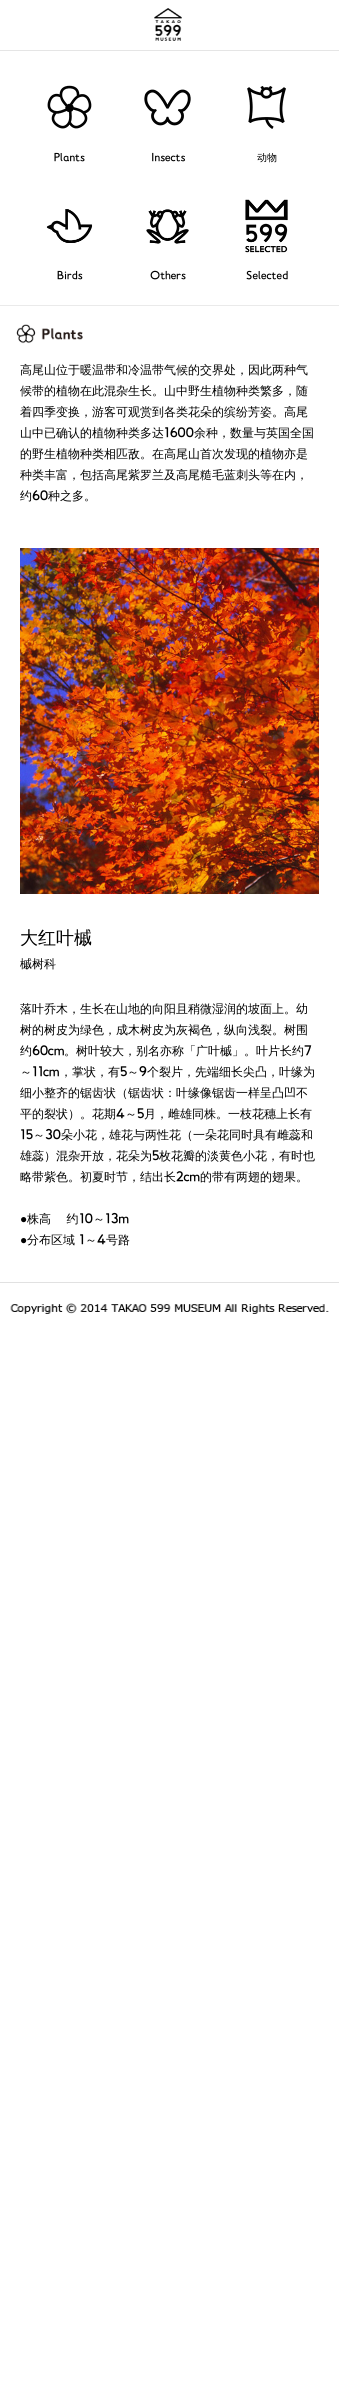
import math
import cairocffi as cairo

surface = cairo.ImageSurface(cairo.FORMAT_RGB24, 339, 2389)
cr = cairo.Context(surface)
options = cairo.FontOptions()
options.set_hint_metrics(cairo.HINT_METRICS_OFF)
options.set_hint_style(cairo.HINT_STYLE_NONE)
cr.set_font_options(options)
cr.set_miter_limit(4)


def use_color(code):
    cr.set_source_rgb(*(v / 255 for v in bytes.fromhex(code[-6:])))


def picture(path, x, y, w, h):
    cr.save()
    cr.set_source_surface(cairo.ImageSurface.create_from_png(path), x, y)
    cr.rectangle(x, y, w, h)
    cr.fill()
    cr.restore()


use_color("#ffffff")
cr.paint()
use_color("#e5e5e5")
cr.rectangle(0, 50, 339, 1)
cr.fill()
picture("img1.png", 154, 8, 28, 33)
picture("img2.png", 47, 85, 45, 44)
cr.select_font_face("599")
cr.set_font_size(10)
use_color("#000000")
cr.move_to(54, 161)
cr.show_text("Plants")
picture("img3.png", 144, 89, 47, 37)
cr.move_to(151, 161)
cr.show_text("Insects")
picture("img4.png", 247, 86, 39, 43)
cr.select_font_face("WenQuanYi Zen Hei Medium")
cr.move_to(257, 161)
cr.show_text("动物")
picture("img5.png", 46, 209, 47, 34)
cr.select_font_face("599")
cr.move_to(57, 279)
cr.show_text("Birds")
picture("img6.png", 146, 209, 43, 35)
cr.move_to(150, 279)
cr.show_text("Others")
picture("img7.png", 245, 199, 43, 54)
cr.move_to(246, 279)
cr.show_text("Selected")
use_color("#eaeaea")
cr.rectangle(0, 305, 339, 1)
cr.fill()
picture("img8.png", 16, 324, 67, 20)
cr.select_font_face("WenQuanYi Zen Hei Medium")
cr.set_font_size(12)
use_color("#000000")
cr.move_to(20, 374)
cr.show_text("高尾山位于暖温带和冷温带气候的交界处，因此两种气")
cr.move_to(20, 395)
cr.show_text("候带的植物在此混杂生长。山中野生植物种类繁多，随")
cr.move_to(20, 416)
cr.show_text("着四季变换，游客可观赏到各类花朵的缤纷芳姿。高尾")
cr.move_to(20, 437)
cr.show_text("山中已确认的植物种类多达")
cr.select_font_face("599")
cr.move_to(164, 437)
cr.show_text("1600")
cr.select_font_face("WenQuanYi Zen Hei Medium")
cr.move_to(194, 437)
cr.show_text("余种，数量与英国全国")
cr.move_to(20, 458)
cr.show_text("的野生植物种类相匹敌。在高尾山首次发现的植物亦是")
cr.move_to(20, 479)
cr.show_text("种类丰富，包括高尾紫罗兰及高尾糙毛蓝刺头等在内，")
cr.move_to(20, 500)
cr.show_text("约")
cr.select_font_face("599")
cr.move_to(32, 500)
cr.show_text("60")
cr.select_font_face("WenQuanYi Zen Hei Medium")
cr.move_to(48, 500)
cr.show_text("种之多。")
picture("img9.png", 20, 548, 299, 346)
cr.set_font_size(18)
cr.move_to(20, 944)
cr.show_text("大红叶槭")
cr.set_font_size(12)
cr.move_to(20, 968)
cr.show_text("槭树科")
cr.move_to(20, 1013)
cr.show_text("落叶乔木，生长在山地的向阳且稍微湿润的坡面上。幼")
cr.move_to(20, 1034)
cr.show_text("树的树皮为绿色，成木树皮为灰褐色，纵向浅裂。树围")
cr.move_to(20, 1055)
cr.show_text("约")
cr.select_font_face("599")
cr.move_to(32, 1055)
cr.show_text("60cm")
cr.select_font_face("WenQuanYi Zen Hei Medium")
cr.move_to(64, 1055)
cr.show_text("。树叶较大，别名亦称「广叶槭」。叶片长约")
cr.select_font_face("599")
cr.move_to(304, 1055)
cr.show_text("7")
cr.select_font_face("WenQuanYi Zen Hei Medium")
cr.move_to(20, 1076)
cr.show_text("～")
cr.select_font_face("599")
cr.move_to(32, 1076)
cr.show_text("11cm")
cr.select_font_face("WenQuanYi Zen Hei Medium")
cr.move_to(60, 1076)
cr.show_text("，掌状，有")
cr.select_font_face("599")
cr.move_to(120, 1076)
cr.show_text("5")
cr.select_font_face("WenQuanYi Zen Hei Medium")
cr.move_to(127, 1076)
cr.show_text("～")
cr.select_font_face("599")
cr.move_to(139, 1076)
cr.show_text("9")
cr.select_font_face("WenQuanYi Zen Hei Medium")
cr.move_to(147, 1076)
cr.show_text("个裂片，先端细长尖凸，叶缘为")
cr.move_to(20, 1097)
cr.show_text("细小整齐的锯齿状（锯齿状：叶缘像锯齿一样呈凸凹不")
cr.move_to(20, 1118)
cr.show_text("平的裂状）。花期")
cr.select_font_face("599")
cr.move_to(116, 1118)
cr.show_text("4")
cr.select_font_face("WenQuanYi Zen Hei Medium")
cr.move_to(125, 1118)
cr.show_text("～")
cr.select_font_face("599")
cr.move_to(137, 1118)
cr.show_text("5")
cr.select_font_face("WenQuanYi Zen Hei Medium")
cr.move_to(144, 1118)
cr.show_text("月，雌雄同株。一枝花穗上长有")
cr.select_font_face("599")
cr.move_to(20, 1139)
cr.show_text("15")
cr.select_font_face("WenQuanYi Zen Hei Medium")
cr.move_to(33, 1139)
cr.show_text("～")
cr.select_font_face("599")
cr.move_to(45, 1139)
cr.show_text("30")
cr.select_font_face("WenQuanYi Zen Hei Medium")
cr.move_to(61, 1139)
cr.show_text("朵小花，雄花与两性花（一朵花同时具有雌蕊和")
cr.move_to(20, 1160)
cr.show_text("雄蕊）混杂开放，花朵为")
cr.select_font_face("599")
cr.move_to(152, 1160)
cr.show_text("5")
cr.select_font_face("WenQuanYi Zen Hei Medium")
cr.move_to(159, 1160)
cr.show_text("枚花瓣的淡黄色小花，有时也")
cr.move_to(20, 1181)
cr.show_text("略带紫色。初夏时节，结出长")
cr.select_font_face("599")
cr.move_to(176, 1181)
cr.show_text("2cm")
cr.select_font_face("WenQuanYi Zen Hei Medium")
cr.move_to(200, 1181)
cr.show_text("的带有两翅的翅果。")
cr.select_font_face("Liberation Sans")
cr.move_to(20, 1223)
cr.show_text("●")
cr.select_font_face("WenQuanYi Zen Hei Medium")
cr.move_to(27, 1223)
cr.show_text("株高 　约")
cr.select_font_face("599")
cr.move_to(79, 1223)
cr.show_text("10")
cr.select_font_face("WenQuanYi Zen Hei Medium")
cr.move_to(93, 1223)
cr.show_text("～")
cr.select_font_face("599")
cr.move_to(105, 1223)
cr.show_text("13m")
cr.select_font_face("Liberation Sans")
cr.move_to(20, 1244)
cr.show_text("●")
cr.select_font_face("WenQuanYi Zen Hei Medium")
cr.move_to(27, 1244)
cr.show_text("分布区域")
cr.select_font_face("599")
cr.move_to(79, 1244)
cr.show_text("1")
cr.select_font_face("WenQuanYi Zen Hei Medium")
cr.move_to(85, 1244)
cr.show_text("～")
cr.select_font_face("599")
cr.move_to(97, 1244)
cr.show_text("4")
cr.select_font_face("WenQuanYi Zen Hei Medium")
cr.move_to(106, 1244)
cr.show_text("号路")
use_color("#e1e1e1")
cr.rectangle(0, 1282, 339, 1)
cr.fill()
picture("img10.png", 10, 1303, 319, 11)
surface.write_to_png("result.png")
